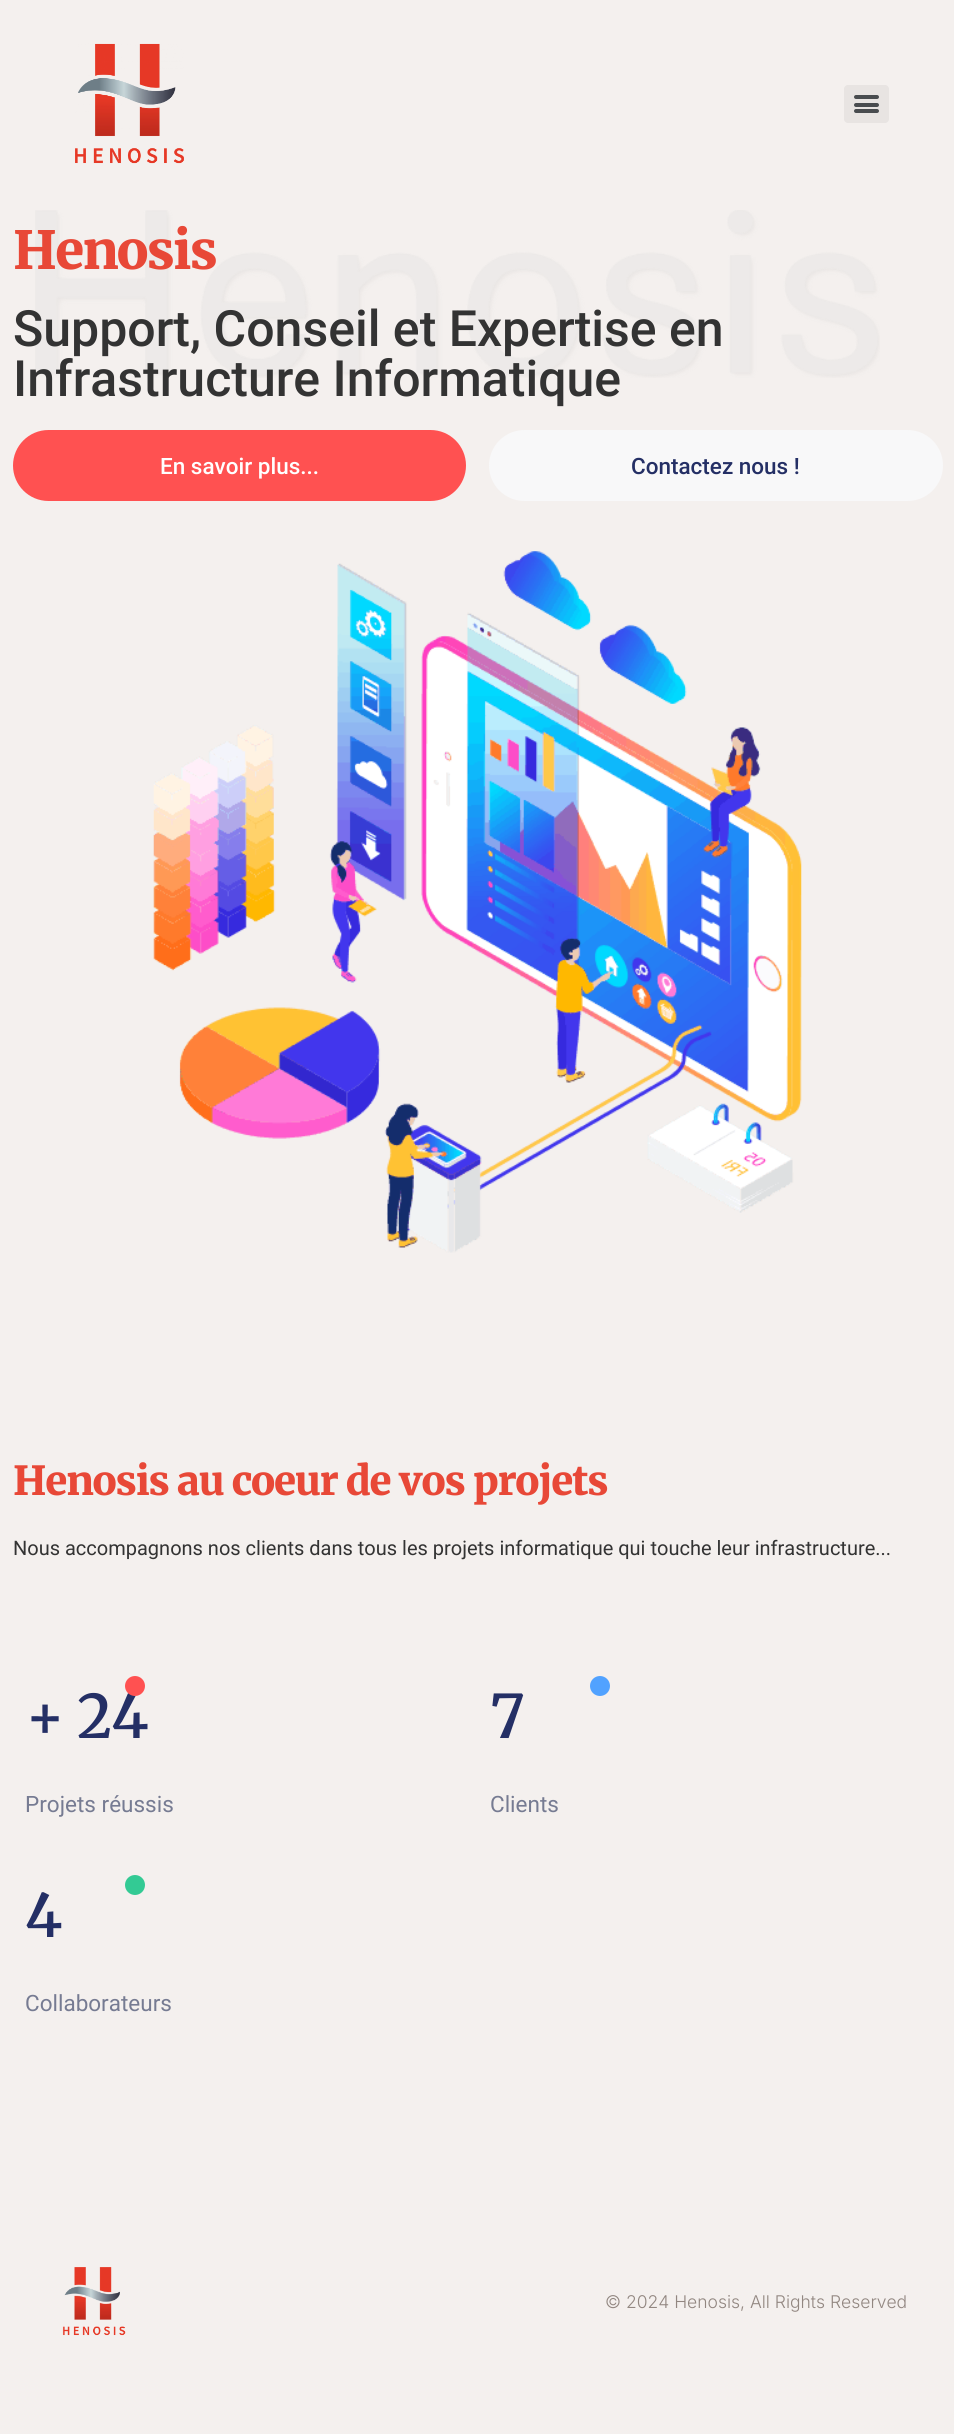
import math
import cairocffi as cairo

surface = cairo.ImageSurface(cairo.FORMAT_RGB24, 954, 2434)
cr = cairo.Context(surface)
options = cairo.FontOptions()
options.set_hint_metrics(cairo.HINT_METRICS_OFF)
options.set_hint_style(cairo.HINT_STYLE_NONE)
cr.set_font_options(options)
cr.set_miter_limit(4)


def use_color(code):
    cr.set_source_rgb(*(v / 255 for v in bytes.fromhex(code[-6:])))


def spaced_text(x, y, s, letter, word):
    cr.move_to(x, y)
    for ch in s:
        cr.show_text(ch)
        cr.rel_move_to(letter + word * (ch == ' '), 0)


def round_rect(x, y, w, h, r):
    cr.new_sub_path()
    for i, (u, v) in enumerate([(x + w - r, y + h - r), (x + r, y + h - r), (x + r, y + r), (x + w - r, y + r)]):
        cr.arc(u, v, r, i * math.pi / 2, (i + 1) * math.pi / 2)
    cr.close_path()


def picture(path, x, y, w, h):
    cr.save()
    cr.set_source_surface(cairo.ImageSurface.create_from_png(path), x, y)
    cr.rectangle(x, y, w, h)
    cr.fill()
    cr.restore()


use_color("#f4f0ee")
cr.paint()
picture("img1.png", 75, 43, 109, 121)
use_color("#e8e4e2")
round_rect(844, 85, 45, 38, 4)
cr.fill()
use_color("#494c4f")
round_rect(854, 103, 25, 4, 2)
cr.fill()
round_rect(854, 95, 25, 4, 2)
cr.fill()
round_rect(854, 109, 25, 4, 2)
cr.fill()
picture("img2.png", 35, 210, 845, 168)
cr.select_font_face("Merriweather Black")
cr.set_font_size(52.5)
use_color("#e84837")
spaced_text(13, 269, "Henosis", -1.75, 0)
cr.select_font_face("Roboto Medium")
cr.set_font_size(50)
use_color("#333333")
cr.move_to(13, 346)
cr.show_text("Support, Conseil et Expertise en")
cr.move_to(13, 396)
cr.show_text("Infrastructure Informatique")
use_color("#ff5151")
round_rect(13, 430, 453, 71, 35.5)
cr.fill()
cr.set_font_size(22.5)
use_color("#ffffff")
cr.move_to(160, 474)
cr.show_text("En savoir plus...")
use_color("#f8f8f9")
round_rect(489, 430, 454, 71, 35.5)
cr.fill()
use_color("#242f65")
cr.move_to(631, 474)
cr.show_text("Contactez nous !")
picture("img3.png", 153, 551, 649, 702)
cr.select_font_face("Merriweather Black")
cr.set_font_size(40)
use_color("#e84837")
spaced_text(13, 1495, "Henosis au coeur de vos projets", -1.2, 0)
cr.select_font_face("Roboto")
cr.set_font_size(20)
use_color("#333333")
cr.move_to(13, 1555)
cr.show_text("Nous accompagnons nos clients dans tous les projets informatique qui touche leur infrastructure...")
cr.select_font_face("Merriweather SemiBold")
cr.set_font_size(60)
use_color("#242f65")
spaced_text(25, 1738, "+ 24", -1.2, 0)
use_color("#ff5151")
cr.new_path()
cr.arc(135, 1686, 10, 0, 2 * math.pi)
cr.fill()
cr.select_font_face("Roboto")
cr.set_font_size(22.5)
use_color("#767b92")
cr.move_to(25, 1812)
cr.show_text("Projets réussis")
use_color("#51a2ff")
cr.new_path()
cr.arc(600, 1686, 10, 0, 2 * math.pi)
cr.fill()
cr.select_font_face("Merriweather SemiBold")
cr.set_font_size(60)
use_color("#242f65")
spaced_text(490, 1738, "7", -1.2, 0)
cr.select_font_face("Roboto")
cr.set_font_size(22.5)
use_color("#767b92")
cr.move_to(490, 1812)
cr.show_text("Clients")
use_color("#33ca94")
cr.new_path()
cr.arc(135, 1885, 10, 0, 2 * math.pi)
cr.fill()
cr.select_font_face("Merriweather SemiBold")
cr.set_font_size(60)
use_color("#242f65")
spaced_text(25, 1937, "4", -1.2, 0)
cr.select_font_face("Roboto")
cr.set_font_size(22.5)
use_color("#767b92")
cr.move_to(25, 2011)
cr.show_text("Collaborateurs")
picture("img4.png", 62, 2267, 64, 69)
cr.select_font_face("Inter Light")
cr.set_font_size(17.5)
use_color("#928781")
cr.move_to(605, 2308)
cr.show_text("© 2024 Henosis, All Rights Reserved")
surface.write_to_png("result.png")
